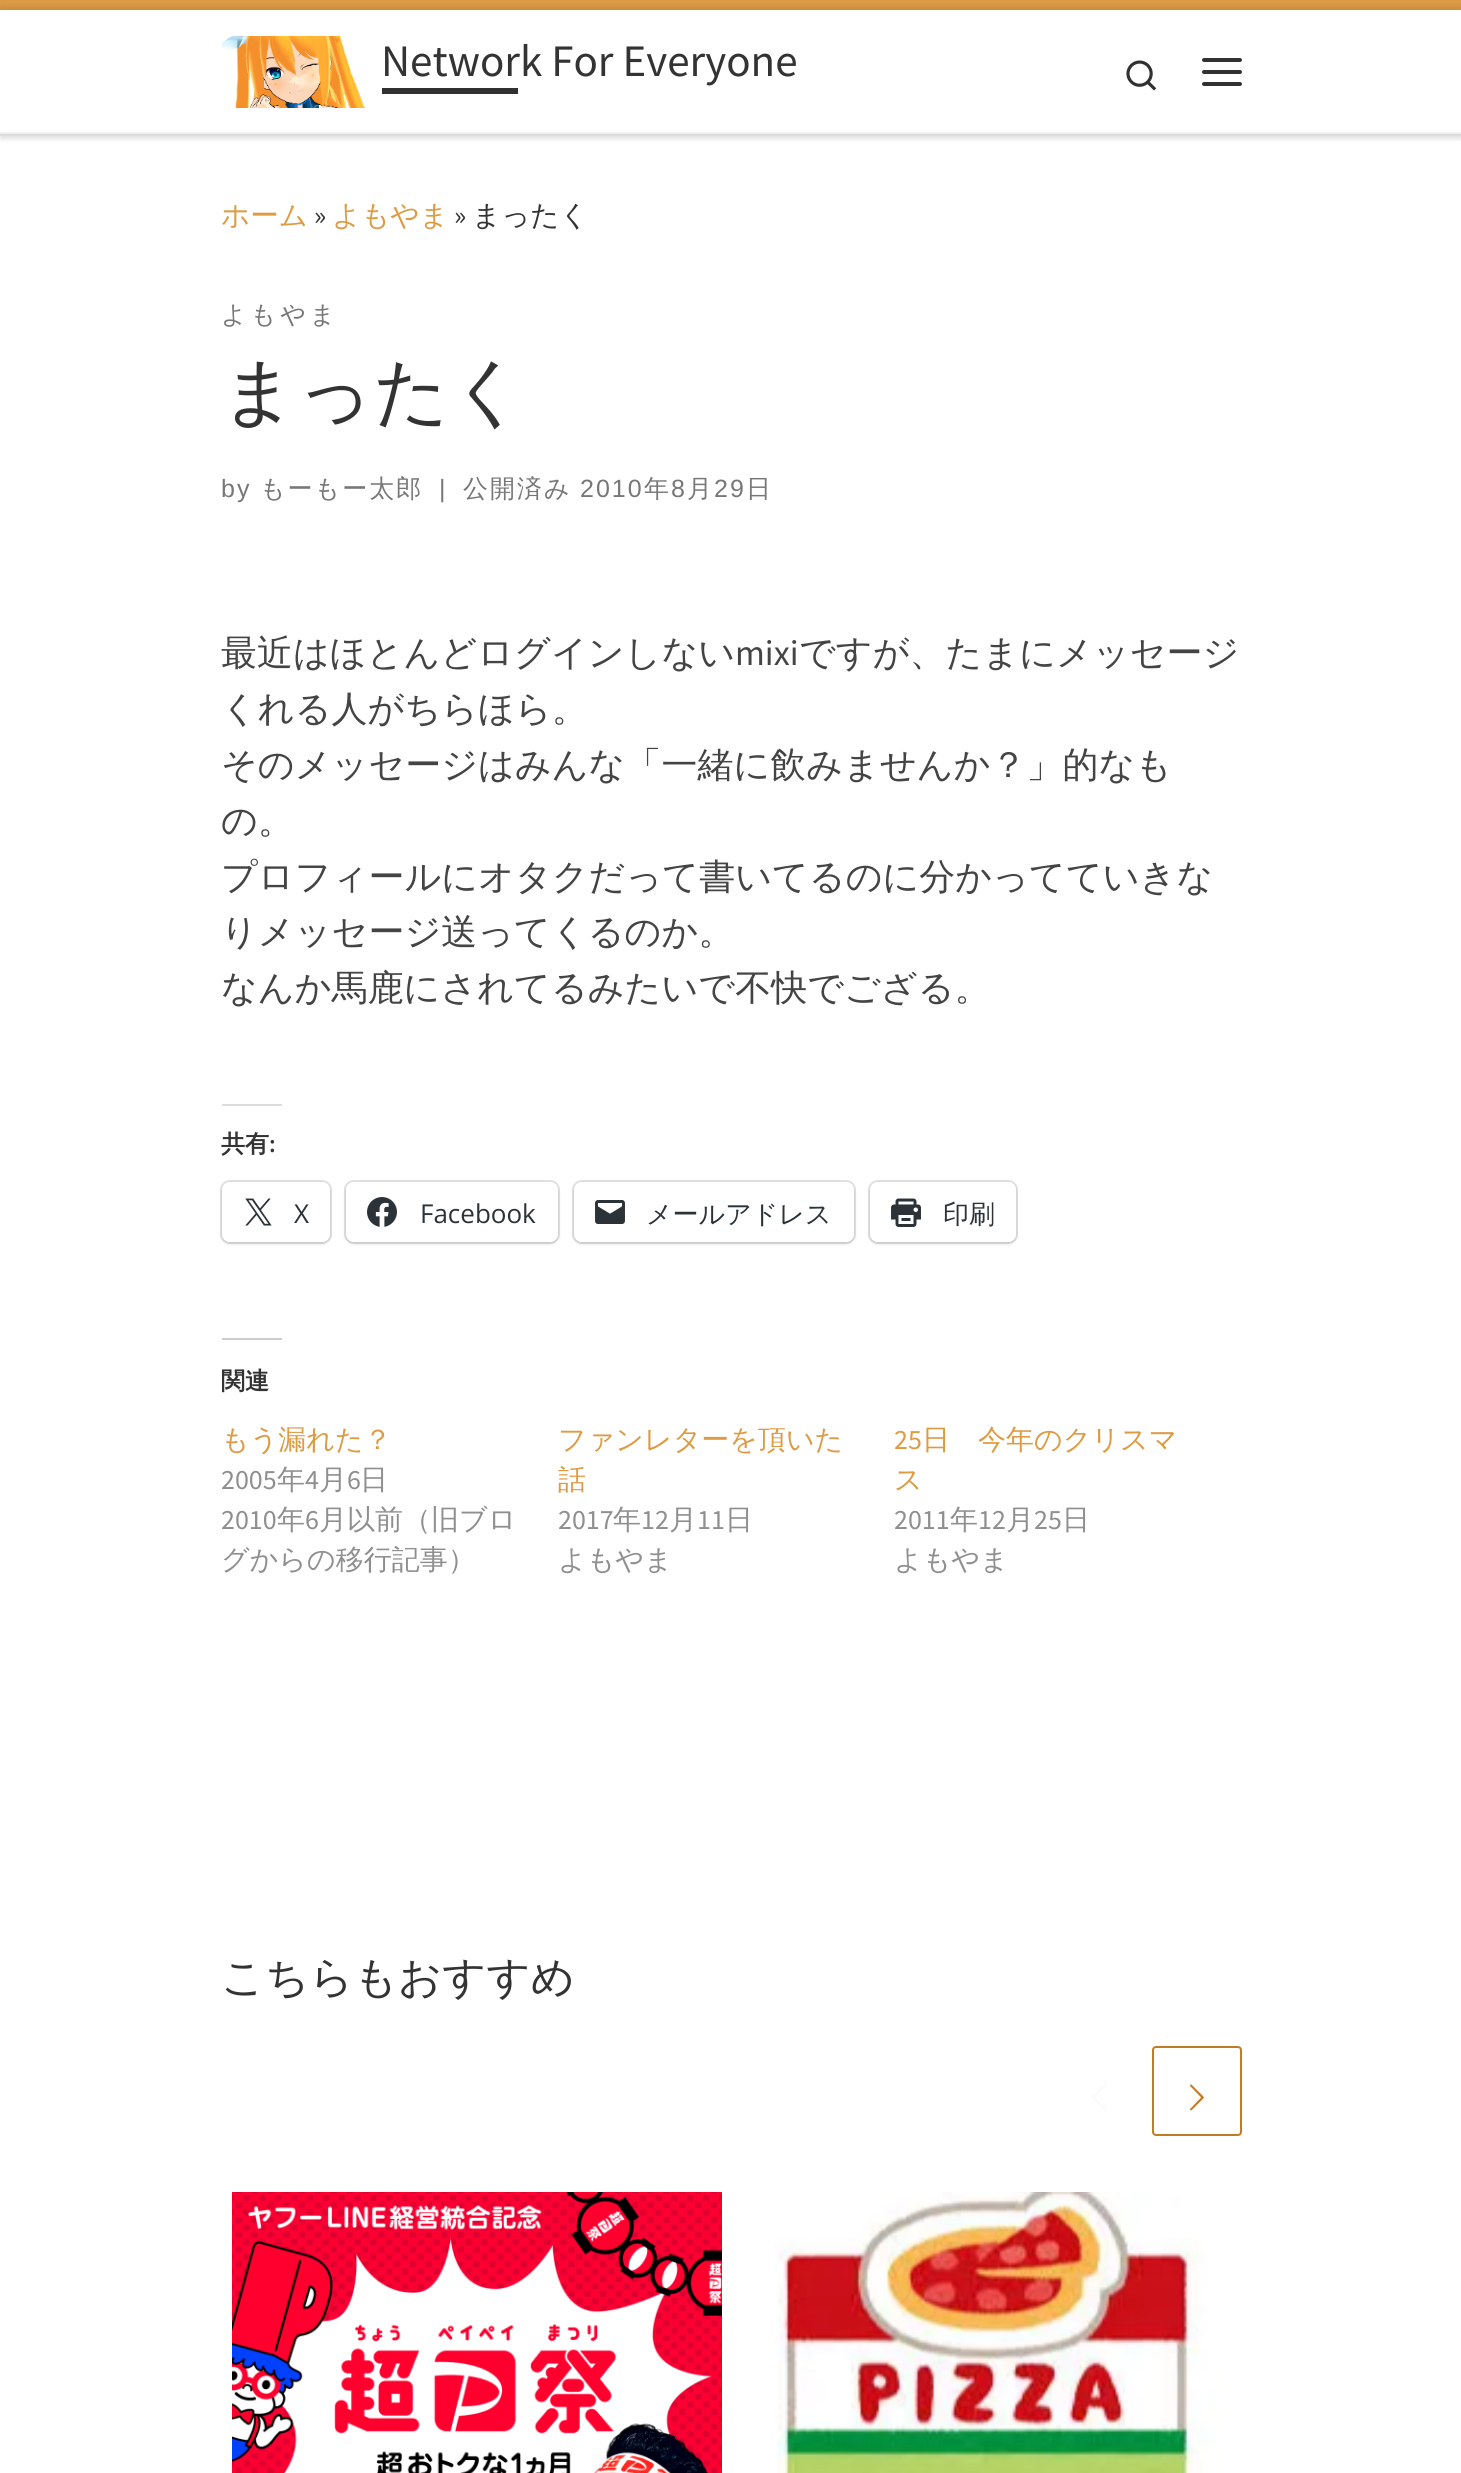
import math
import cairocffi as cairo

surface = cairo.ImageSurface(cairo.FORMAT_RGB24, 1461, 2473)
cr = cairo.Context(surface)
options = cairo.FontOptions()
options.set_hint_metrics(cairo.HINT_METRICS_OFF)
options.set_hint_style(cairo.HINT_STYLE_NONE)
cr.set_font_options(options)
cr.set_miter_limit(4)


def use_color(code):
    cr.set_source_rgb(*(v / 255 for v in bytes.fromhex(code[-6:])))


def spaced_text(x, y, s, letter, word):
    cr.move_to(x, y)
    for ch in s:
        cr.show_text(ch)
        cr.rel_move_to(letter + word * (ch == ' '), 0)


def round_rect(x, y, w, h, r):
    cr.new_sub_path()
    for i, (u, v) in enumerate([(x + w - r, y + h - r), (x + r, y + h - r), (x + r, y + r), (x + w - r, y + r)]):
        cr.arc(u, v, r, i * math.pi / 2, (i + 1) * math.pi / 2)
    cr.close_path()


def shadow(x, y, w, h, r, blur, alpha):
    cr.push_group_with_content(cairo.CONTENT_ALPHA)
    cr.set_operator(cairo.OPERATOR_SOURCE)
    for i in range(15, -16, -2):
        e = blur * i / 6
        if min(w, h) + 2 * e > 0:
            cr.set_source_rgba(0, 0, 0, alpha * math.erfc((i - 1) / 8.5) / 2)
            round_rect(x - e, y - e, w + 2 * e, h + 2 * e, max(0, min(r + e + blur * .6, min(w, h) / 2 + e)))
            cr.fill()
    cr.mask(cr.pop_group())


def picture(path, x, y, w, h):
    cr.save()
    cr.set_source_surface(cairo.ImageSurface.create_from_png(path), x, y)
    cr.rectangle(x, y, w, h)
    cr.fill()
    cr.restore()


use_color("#ffffff")
cr.paint()
cr.save()
cr.rectangle(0, 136, 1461, 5)
cr.clip()
use_color("#666666")
shadow(0, 4, 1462, 136, 0, 2, 0.08)
cr.restore()
use_color("#dd9b44")
cr.rectangle(0, 0, 1461, 10)
cr.fill()
use_color("#efefef")
cr.rectangle(0, 134, 1461, 2)
cr.fill()
cr.save()
cr.set_fill_rule(cairo.FILL_RULE_EVEN_ODD)
cr.new_path()
cr.move_to(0, 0)
cr.line_to(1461, 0)
cr.line_to(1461, 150)
cr.line_to(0, 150)
cr.close_path()
cr.move_to(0, 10)
cr.line_to(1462, 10)
cr.line_to(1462, 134)
cr.line_to(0, 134)
cr.close_path()
cr.clip()
use_color("#000000")
shadow(0, 10, 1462, 124, 0, 5, 0.2)
cr.restore()
picture("img1.png", 222, 36, 143, 72)
cr.select_font_face("Source Sans Pro")
cr.set_font_size(45)
use_color("#333333")
cr.move_to(381, 76)
cr.show_text("Network For Everyone")
use_color("#313131")
cr.rectangle(382, 88, 136, 6)
cr.fill()
picture("img2.png", 1126, 60, 31, 31)
round_rect(1202, 58, 40, 4, 2)
cr.fill()
round_rect(1202, 70, 40, 4, 2)
cr.fill()
round_rect(1202, 82, 40, 4, 2)
cr.fill()
use_color("#f0f0f0")
cr.rectangle(0, 132, 1461, 2)
cr.fill()
cr.select_font_face("WenQuanYi Zen Hei Medium")
cr.set_font_size(28.5)
use_color("#dd9b44")
cr.move_to(221, 225)
cr.show_text("ホーム")
cr.select_font_face("Source Sans Pro")
use_color("#333333")
cr.move_to(314, 225)
cr.show_text("»")
cr.select_font_face("WenQuanYi Zen Hei Medium")
use_color("#dd9b44")
cr.move_to(332, 225)
cr.show_text("よもやま")
cr.select_font_face("Source Sans Pro")
use_color("#333333")
cr.move_to(454, 225)
cr.show_text("»")
cr.select_font_face("WenQuanYi Zen Hei Medium")
cr.move_to(472, 225)
cr.show_text("まったく")
cr.set_font_size(25)
use_color("#777777")
spaced_text(221, 323, "よもやま", 4, 0)
cr.set_font_size(74.5)
use_color("#333333")
cr.move_to(221, 417)
cr.show_text("まったく")
cr.select_font_face("Liberation Sans")
cr.set_font_size(25)
use_color("#777777")
spaced_text(221, 497, "by", 2, 0)
cr.select_font_face("WenQuanYi Zen Hei Medium")
spaced_text(260, 497, "もーもー太郎", 2, 0)
cr.select_font_face("Liberation Sans")
spaced_text(439, 497, "|", 2, 0)
cr.select_font_face("WenQuanYi Zen Hei Medium")
spaced_text(463, 497, "公開済み", 2, 0)
cr.select_font_face("Liberation Sans")
spaced_text(580, 497, "2010", 2, 0)
cr.select_font_face("WenQuanYi Zen Hei Medium")
spaced_text(644, 497, "年", 2, 0)
cr.select_font_face("Liberation Sans")
spaced_text(671, 497, "8", 2, 0)
cr.select_font_face("WenQuanYi Zen Hei Medium")
spaced_text(687, 497, "月", 2, 0)
cr.select_font_face("Liberation Sans")
spaced_text(714, 497, "29", 2, 0)
cr.select_font_face("WenQuanYi Zen Hei Medium")
spaced_text(746, 497, "日", 2, 0)
cr.set_font_size(36)
use_color("#444444")
cr.move_to(221, 665)
cr.show_text("最近はほとんどログインしない")
cr.select_font_face("Source Sans Pro")
cr.move_to(735, 665)
cr.show_text("mixi")
cr.select_font_face("WenQuanYi Zen Hei Medium")
cr.move_to(799, 665)
cr.show_text("ですが、たまにメッセージ")
cr.move_to(221, 721)
cr.show_text("くれる人がちらほら。")
cr.move_to(221, 777)
cr.show_text("そのメッセージはみんな「一緒に飲みませんか？」的なも")
cr.move_to(221, 833)
cr.show_text("の。")
cr.move_to(221, 889)
cr.show_text("プロフィールにオタクだって書いてるのに分かってていきな")
cr.move_to(221, 944)
cr.show_text("りメッセージ送ってくるのか。")
cr.move_to(221, 1000)
cr.show_text("なんか馬鹿にされてるみたいで不快でござる。")
use_color("#dcdcde")
cr.rectangle(222, 1104, 60, 2)
cr.fill()
cr.select_font_face("WenQuanYi Zen Hei", cairo.FONT_SLANT_NORMAL, cairo.FONT_WEIGHT_BOLD)
cr.set_font_size(24)
use_color("#333333")
cr.move_to(221, 1152)
cr.show_text("共有")
cr.select_font_face("Source Sans Pro", cairo.FONT_SLANT_NORMAL, cairo.FONT_WEIGHT_BOLD)
cr.move_to(269, 1152)
cr.show_text(":")
round_rect(221, 1181, 110, 62, 9)
use_color("#e0e0e0")
cr.stroke()
use_color("#000000")
shadow(222, 1184, 108, 60, 8, 2, 0.12)
use_color("#ffffff")
round_rect(222, 1182, 108, 60, 8)
cr.fill()
picture("img3.png", 245, 1198, 27, 28)
cr.select_font_face("Open Sans")
cr.set_font_size(26)
use_color("#2c3338")
cr.move_to(294, 1223)
cr.show_text("X")
round_rect(345, 1181, 214, 62, 9)
use_color("#e0e0e0")
cr.stroke()
use_color("#000000")
shadow(346, 1184, 212, 60, 8, 2, 0.12)
use_color("#ffffff")
round_rect(346, 1182, 212, 60, 8)
cr.fill()
picture("img4.png", 367, 1197, 30, 30)
use_color("#2c3338")
cr.move_to(420, 1223)
cr.show_text("Facebook")
round_rect(573, 1181, 282, 62, 9)
use_color("#e0e0e0")
cr.stroke()
use_color("#000000")
shadow(574, 1184, 280, 60, 8, 2, 0.12)
use_color("#ffffff")
round_rect(574, 1182, 280, 60, 8)
cr.fill()
picture("img5.png", 595, 1200, 30, 24)
cr.select_font_face("WenQuanYi Zen Hei Medium")
use_color("#2c3338")
cr.move_to(646, 1223)
cr.show_text("メールアドレス")
round_rect(869, 1181, 148, 62, 9)
use_color("#e0e0e0")
cr.stroke()
use_color("#000000")
shadow(870, 1184, 146, 60, 8, 2, 0.12)
use_color("#ffffff")
round_rect(870, 1182, 146, 60, 8)
cr.fill()
picture("img6.png", 891, 1198, 30, 29)
use_color("#2c3338")
cr.move_to(943, 1223)
cr.show_text("印刷")
use_color("#cccccc")
cr.rectangle(222, 1338, 60, 2)
cr.fill()
cr.select_font_face("WenQuanYi Zen Hei", cairo.FONT_SLANT_NORMAL, cairo.FONT_WEIGHT_BOLD)
cr.set_font_size(24)
use_color("#333333")
cr.move_to(221, 1389)
cr.show_text("関連")
cr.select_font_face("WenQuanYi Zen Hei Medium")
cr.set_font_size(28)
use_color("#dd9b44")
cr.move_to(221, 1449)
cr.show_text("もう漏れた？")
cr.select_font_face("Source Sans Pro")
use_color("#8f8f8f")
cr.move_to(221, 1489)
cr.show_text("2005")
cr.select_font_face("WenQuanYi Zen Hei Medium")
cr.move_to(277, 1489)
cr.show_text("年")
cr.select_font_face("Source Sans Pro")
cr.move_to(305, 1489)
cr.show_text("4")
cr.select_font_face("WenQuanYi Zen Hei Medium")
cr.move_to(319, 1489)
cr.show_text("月")
cr.select_font_face("Source Sans Pro")
cr.move_to(347, 1489)
cr.show_text("6")
cr.select_font_face("WenQuanYi Zen Hei Medium")
cr.move_to(360, 1489)
cr.show_text("日")
cr.select_font_face("Source Sans Pro")
cr.move_to(221, 1529)
cr.show_text("2010")
cr.select_font_face("WenQuanYi Zen Hei Medium")
cr.move_to(277, 1529)
cr.show_text("年")
cr.select_font_face("Source Sans Pro")
cr.move_to(305, 1529)
cr.show_text("6")
cr.select_font_face("WenQuanYi Zen Hei Medium")
cr.move_to(319, 1529)
cr.show_text("月以前（旧ブロ")
cr.move_to(221, 1569)
cr.show_text("グからの移行記事）")
use_color("#dd9b44")
cr.move_to(558, 1449)
cr.show_text("ファンレターを頂いた")
cr.move_to(558, 1489)
cr.show_text("話")
cr.select_font_face("Source Sans Pro")
use_color("#8f8f8f")
cr.move_to(558, 1529)
cr.show_text("2017")
cr.select_font_face("WenQuanYi Zen Hei Medium")
cr.move_to(613, 1529)
cr.show_text("年")
cr.select_font_face("Source Sans Pro")
cr.move_to(641, 1529)
cr.show_text("12")
cr.select_font_face("WenQuanYi Zen Hei Medium")
cr.move_to(669, 1529)
cr.show_text("月")
cr.select_font_face("Source Sans Pro")
cr.move_to(697, 1529)
cr.show_text("11")
cr.select_font_face("WenQuanYi Zen Hei Medium")
cr.move_to(725, 1529)
cr.show_text("日")
cr.move_to(558, 1569)
cr.show_text("よもやま")
cr.select_font_face("Source Sans Pro")
use_color("#dd9b44")
cr.move_to(894, 1449)
cr.show_text("25")
cr.select_font_face("WenQuanYi Zen Hei Medium")
cr.move_to(922, 1449)
cr.show_text("日　今年のクリスマ")
cr.move_to(894, 1489)
cr.show_text("ス")
cr.select_font_face("Source Sans Pro")
use_color("#8f8f8f")
cr.move_to(894, 1529)
cr.show_text("2011")
cr.select_font_face("WenQuanYi Zen Hei Medium")
cr.move_to(950, 1529)
cr.show_text("年")
cr.select_font_face("Source Sans Pro")
cr.move_to(978, 1529)
cr.show_text("12")
cr.select_font_face("WenQuanYi Zen Hei Medium")
cr.move_to(1006, 1529)
cr.show_text("月")
cr.select_font_face("Source Sans Pro")
cr.move_to(1034, 1529)
cr.show_text("25")
cr.select_font_face("WenQuanYi Zen Hei Medium")
cr.move_to(1062, 1529)
cr.show_text("日")
cr.move_to(894, 1569)
cr.show_text("よもやま")
cr.set_font_size(43.25)
use_color("#333333")
cr.move_to(221, 1992)
cr.show_text("こちらもおすすめ")
picture("img7.png", 1092, 2085, 14, 25)
round_rect(1153, 2047, 88, 88, 3)
use_color("#c17d23")
cr.stroke()
picture("img8.png", 1190, 2084, 14, 27)
picture("img9.png", 232, 2192, 490, 281)
picture("img10.png", 742, 2192, 490, 281)
surface.write_to_png("result.png")
